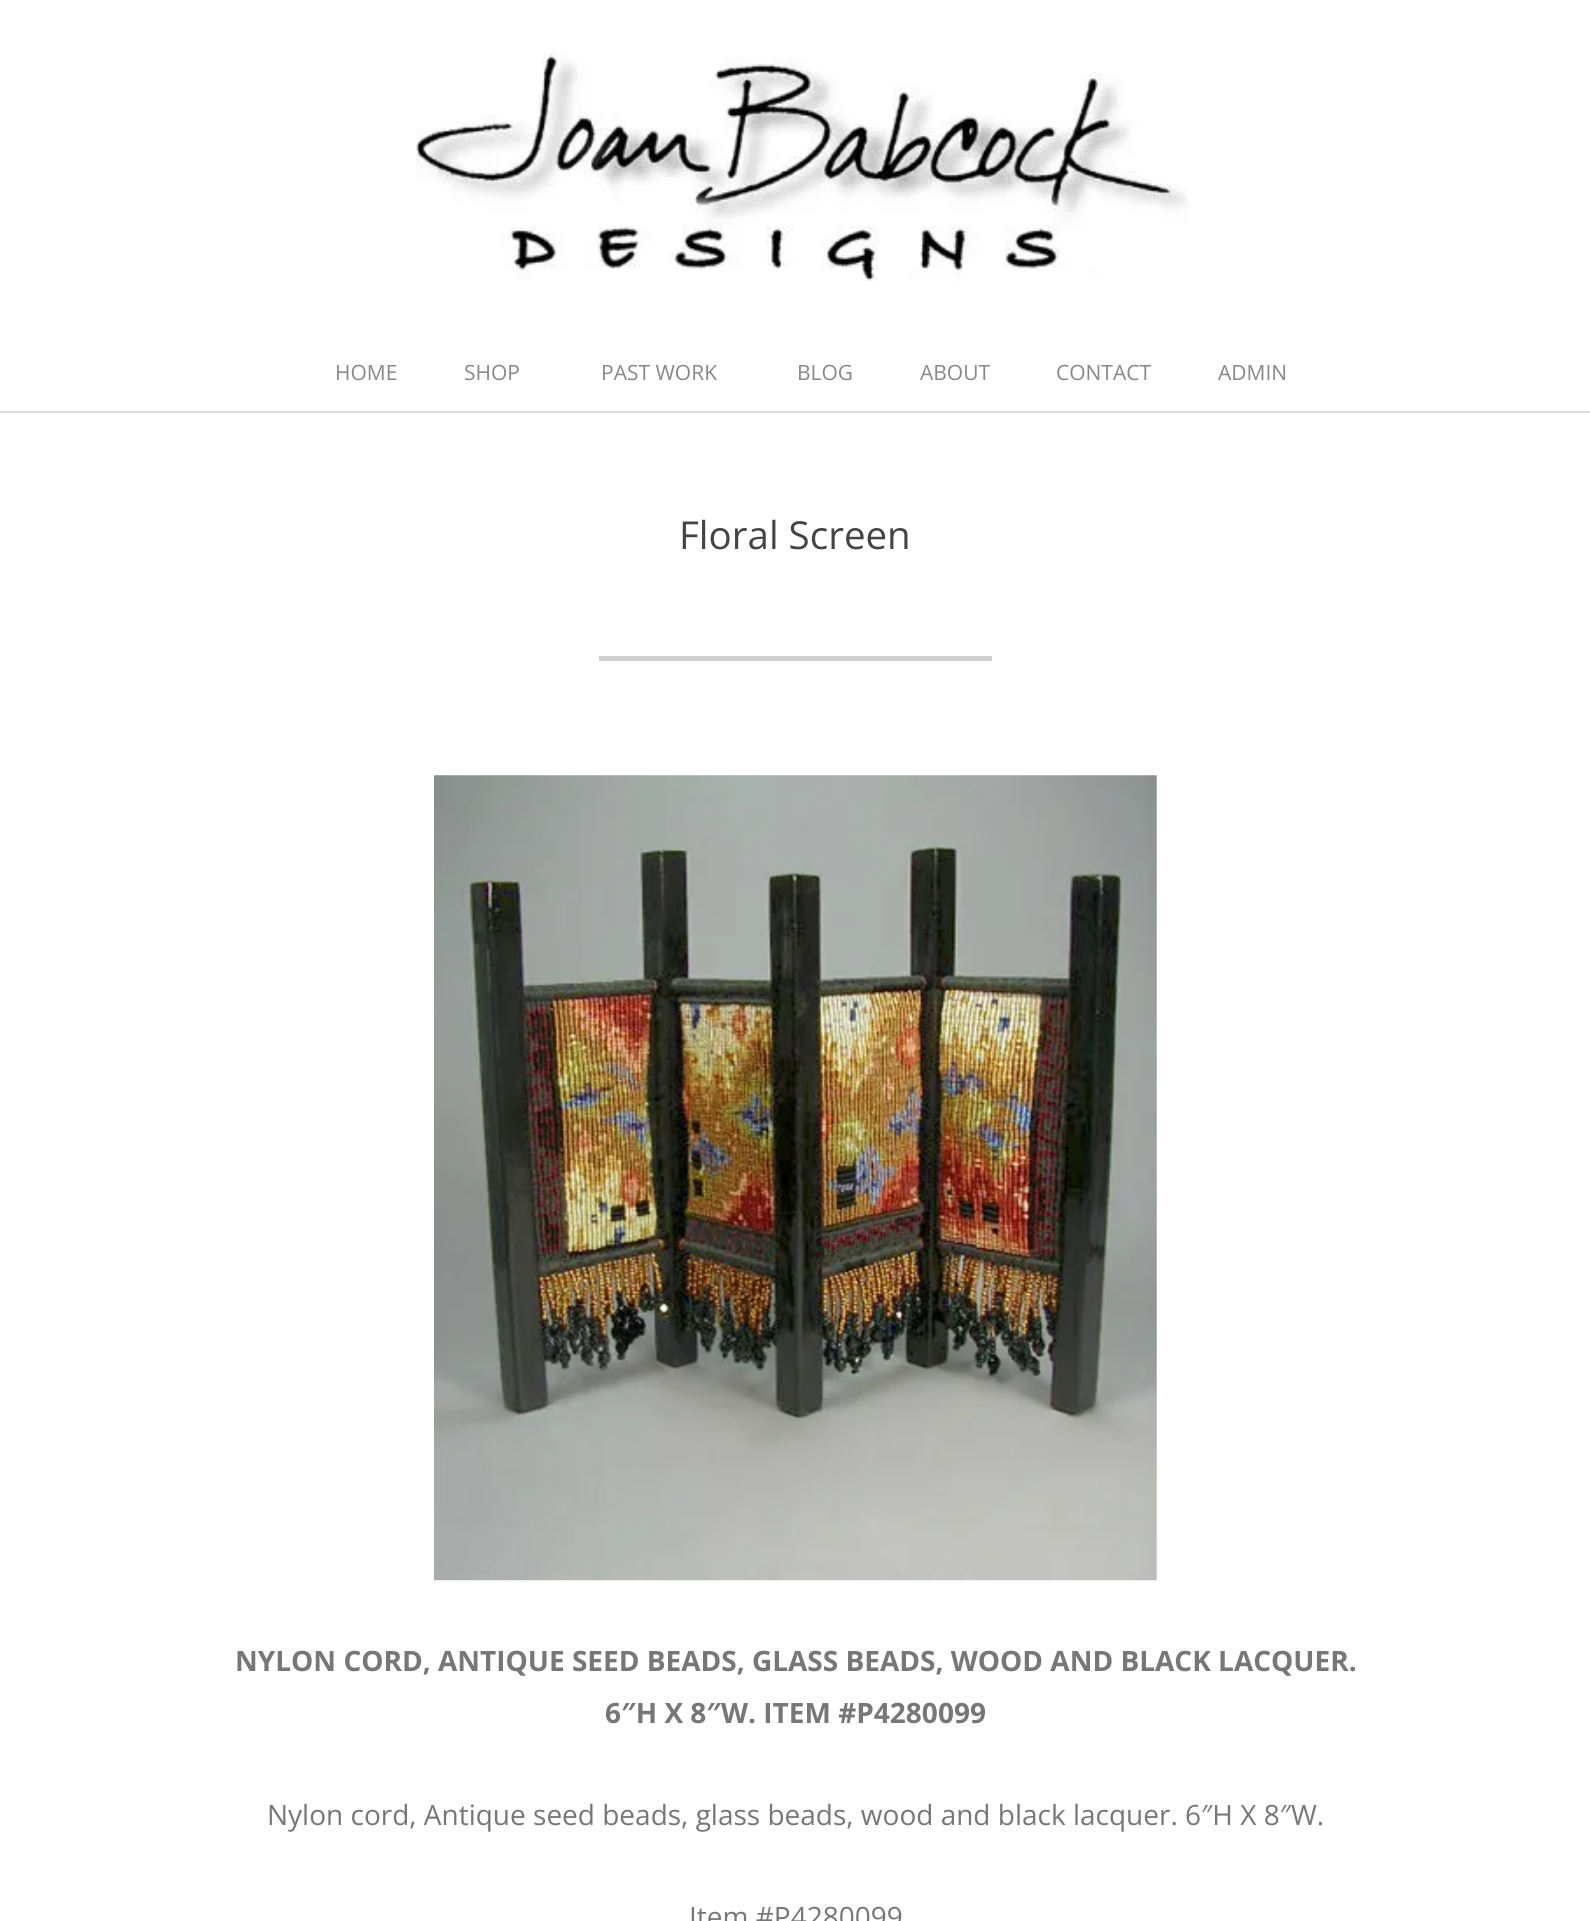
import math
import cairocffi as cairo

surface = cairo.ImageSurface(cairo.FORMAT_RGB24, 1590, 1921)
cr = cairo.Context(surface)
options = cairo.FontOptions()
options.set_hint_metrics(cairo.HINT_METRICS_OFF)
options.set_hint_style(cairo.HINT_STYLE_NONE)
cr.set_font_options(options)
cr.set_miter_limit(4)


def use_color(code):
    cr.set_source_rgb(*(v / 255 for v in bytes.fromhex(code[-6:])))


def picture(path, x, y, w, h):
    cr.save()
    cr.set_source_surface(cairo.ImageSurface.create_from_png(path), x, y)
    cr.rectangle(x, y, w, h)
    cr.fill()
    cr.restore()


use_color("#ffffff")
cr.paint()
picture("img1.png", 416, 51, 773, 231)
use_color("#dddddd")
cr.rectangle(0, 411, 1590, 2)
cr.fill()
cr.select_font_face("Open Sans")
cr.set_font_size(21)
use_color("#888888")
cr.move_to(335, 380)
cr.show_text("HOME")
cr.move_to(464, 380)
cr.show_text("SHOP")
cr.move_to(601, 380)
cr.show_text("PAST WORK")
cr.move_to(797, 380)
cr.show_text("BLOG")
cr.move_to(920, 380)
cr.show_text("ABOUT")
cr.move_to(1056, 380)
cr.show_text("CONTACT")
cr.move_to(1218, 380)
cr.show_text("ADMIN")
cr.set_font_size(38.5)
use_color("#444444")
cr.move_to(679, 549)
cr.show_text("Floral Screen")
use_color("#d0d0d0")
cr.rectangle(599, 656, 393, 5)
cr.fill()
picture("img2.png", 434, 775, 723, 806)
cr.select_font_face("Open Sans", cairo.FONT_SLANT_NORMAL, cairo.FONT_WEIGHT_BOLD)
cr.set_font_size(28)
use_color("#777777")
cr.move_to(235, 1671)
cr.show_text("NYLON CORD, ANTIQUE SEED BEADS, GLASS BEADS, WOOD AND BLACK LACQUER.")
cr.move_to(605, 1723)
cr.show_text("6″H X 8″W. ITEM #P4280099")
cr.select_font_face("Open Sans")
cr.move_to(267, 1825)
cr.show_text("Nylon cord, Antique seed beads, glass beads, wood and black lacquer. 6″H X 8″W.")
cr.move_to(689, 1927)
cr.show_text("Item #P4280099")
surface.write_to_png("result.png")
